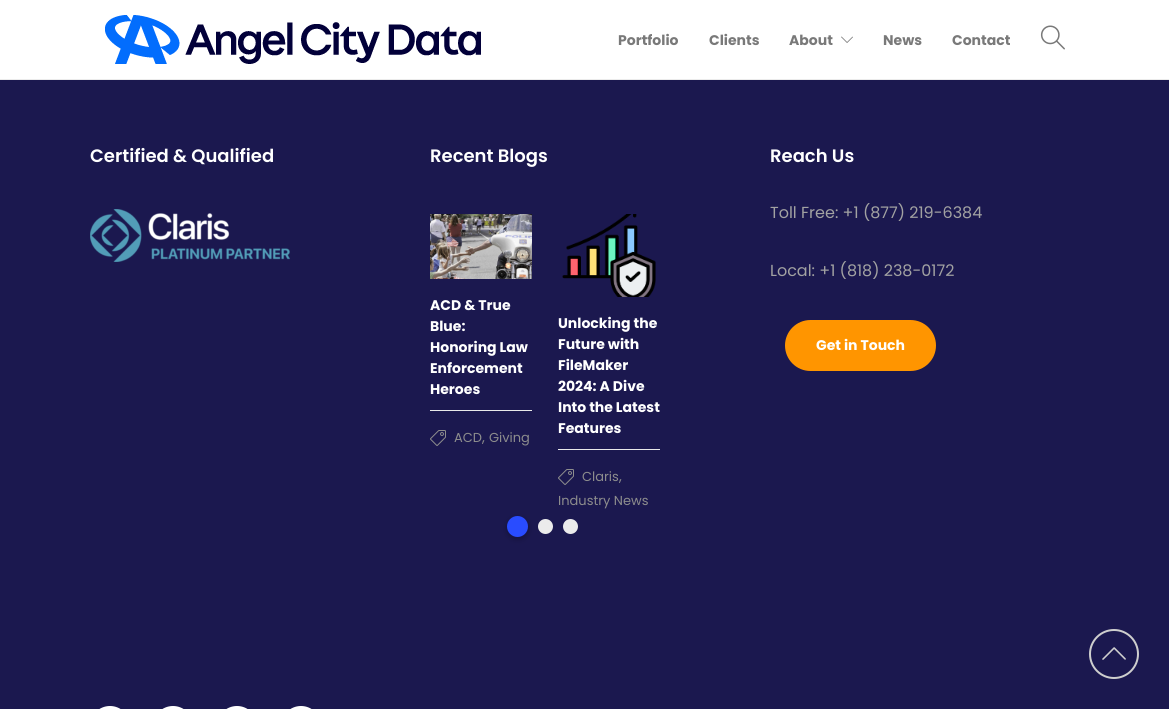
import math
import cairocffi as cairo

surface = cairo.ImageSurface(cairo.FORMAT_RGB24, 1169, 709)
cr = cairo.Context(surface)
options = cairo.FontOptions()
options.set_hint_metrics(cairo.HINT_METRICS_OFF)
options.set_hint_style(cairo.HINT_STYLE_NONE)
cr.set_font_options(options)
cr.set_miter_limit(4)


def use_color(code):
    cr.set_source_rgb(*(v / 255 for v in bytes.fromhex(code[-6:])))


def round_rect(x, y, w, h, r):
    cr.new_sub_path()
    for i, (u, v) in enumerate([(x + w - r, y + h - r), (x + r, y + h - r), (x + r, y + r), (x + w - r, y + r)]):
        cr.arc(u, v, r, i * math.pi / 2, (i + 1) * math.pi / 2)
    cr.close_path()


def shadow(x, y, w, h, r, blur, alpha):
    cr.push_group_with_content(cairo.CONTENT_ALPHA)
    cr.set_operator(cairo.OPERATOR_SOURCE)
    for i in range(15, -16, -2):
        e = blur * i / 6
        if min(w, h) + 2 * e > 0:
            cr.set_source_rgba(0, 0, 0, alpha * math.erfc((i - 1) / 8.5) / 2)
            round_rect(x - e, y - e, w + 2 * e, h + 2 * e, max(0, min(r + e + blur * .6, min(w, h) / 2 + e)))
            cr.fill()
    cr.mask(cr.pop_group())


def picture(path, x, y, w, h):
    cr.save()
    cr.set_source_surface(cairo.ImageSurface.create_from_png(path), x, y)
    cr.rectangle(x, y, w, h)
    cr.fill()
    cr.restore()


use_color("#1b184f")
cr.paint()
use_color("#ffffff")
cr.rectangle(0, 0, 1169, 79)
cr.fill()
use_color("#ebebeb")
cr.rectangle(0, 79, 1169, 1)
cr.fill()
picture("img1.png", 105, 15, 376, 49)
cr.select_font_face("Poppins", cairo.FONT_SLANT_NORMAL, cairo.FONT_WEIGHT_BOLD)
cr.set_font_size(14)
use_color("#797979")
cr.move_to(618, 45)
cr.show_text("Portfolio")
cr.move_to(709, 45)
cr.show_text("Clients")
cr.move_to(789, 45)
cr.show_text("About")
picture("img2.png", 841, 36, 12, 7)
cr.move_to(883, 45)
cr.show_text("News")
cr.move_to(952, 45)
cr.show_text("Contact")
picture("img3.png", 1040, 25, 25, 25)
cr.select_font_face("Poppins SemiBold")
cr.set_font_size(18)
use_color("#ffffff")
cr.move_to(90, 162)
cr.show_text("Certified & Qualified")
picture("img4.png", 90, 209, 200, 53)
round_rect(90, 706, 40, 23, 20)
cr.fill()
round_rect(153, 706, 40, 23, 20)
cr.fill()
round_rect(217, 706, 40, 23, 20)
cr.fill()
round_rect(281, 706, 40, 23, 20)
cr.fill()
cr.move_to(430, 162)
cr.show_text("Recent Blogs")
picture("img5.png", 430, 214, 102, 65)
cr.select_font_face("Poppins", cairo.FONT_SLANT_NORMAL, cairo.FONT_WEIGHT_BOLD)
cr.set_font_size(14)
cr.move_to(430, 310)
cr.show_text("ACD & True")
cr.move_to(430, 331)
cr.show_text("Blue:")
cr.move_to(430, 352)
cr.show_text("Honoring Law")
cr.move_to(430, 373)
cr.show_text("Enforcement")
cr.move_to(430, 394)
cr.show_text("Heroes")
use_color("#e9e9e9")
cr.rectangle(430, 410, 102, 1)
cr.fill()
picture("img6.png", 430, 430, 16, 16)
cr.select_font_face("Poppins")
cr.set_font_size(13)
use_color("#8d8d8d")
cr.move_to(454, 442)
cr.show_text("ACD")
cr.set_font_size(14)
cr.move_to(482, 442)
cr.show_text(",")
cr.set_font_size(13)
cr.move_to(489, 442)
cr.show_text("Giving")
picture("img7.png", 562, 214, 94, 83)
cr.select_font_face("Poppins", cairo.FONT_SLANT_NORMAL, cairo.FONT_WEIGHT_BOLD)
cr.set_font_size(14)
use_color("#ffffff")
cr.move_to(558, 328)
cr.show_text("Unlocking the")
cr.move_to(558, 349)
cr.show_text("Future with")
cr.move_to(558, 370)
cr.show_text("FileMaker")
cr.move_to(558, 391)
cr.show_text("2024: A Dive")
cr.move_to(558, 412)
cr.show_text("Into the Latest")
cr.move_to(558, 433)
cr.show_text("Features")
use_color("#e9e9e9")
cr.rectangle(558, 449, 102, 1)
cr.fill()
picture("img6.png", 558, 469, 16, 16)
cr.select_font_face("Poppins")
cr.set_font_size(13)
use_color("#8d8d8d")
cr.move_to(582, 481)
cr.show_text("Claris")
cr.set_font_size(14)
cr.move_to(619, 481)
cr.show_text(",")
cr.set_font_size(13)
cr.move_to(558, 505)
cr.show_text("Industry News")
use_color("#000000")
shadow(506, 517, 23, 23, 11.5, 2.5, 0.2)
use_color("#294cff")
cr.arc(517.5, 526.5, 10.5, 0, 2 * math.pi)
cr.fill()
use_color("#ebebeb")
cr.arc(545.5, 526.5, 7.5, 0, 2 * math.pi)
cr.fill()
cr.arc(570.5, 526.5, 7.5, 0, 2 * math.pi)
cr.fill()
cr.select_font_face("Poppins SemiBold")
cr.set_font_size(18)
use_color("#ffffff")
cr.move_to(770, 162)
cr.show_text("Reach Us")
cr.select_font_face("Poppins")
cr.set_font_size(16)
use_color("#a2a2a2")
cr.move_to(770, 218)
cr.show_text("Toll Free: +1 (877) 219-6384")
cr.move_to(770, 276)
cr.show_text("Local: +1 (818) 238-0172")
use_color("#ff9500")
round_rect(785, 320, 151, 51, 25.5)
cr.fill()
cr.select_font_face("Poppins", cairo.FONT_SLANT_NORMAL, cairo.FONT_WEIGHT_BOLD)
cr.set_font_size(14)
use_color("#ffffff")
cr.move_to(816, 350)
cr.show_text("Get in Touch")
cr.new_path()
cr.arc(1114, 654, 24, 0, 2 * math.pi)
use_color("#cecece")
cr.stroke()
picture("img8.png", 1102, 647, 24, 13)
surface.write_to_png("result.png")
